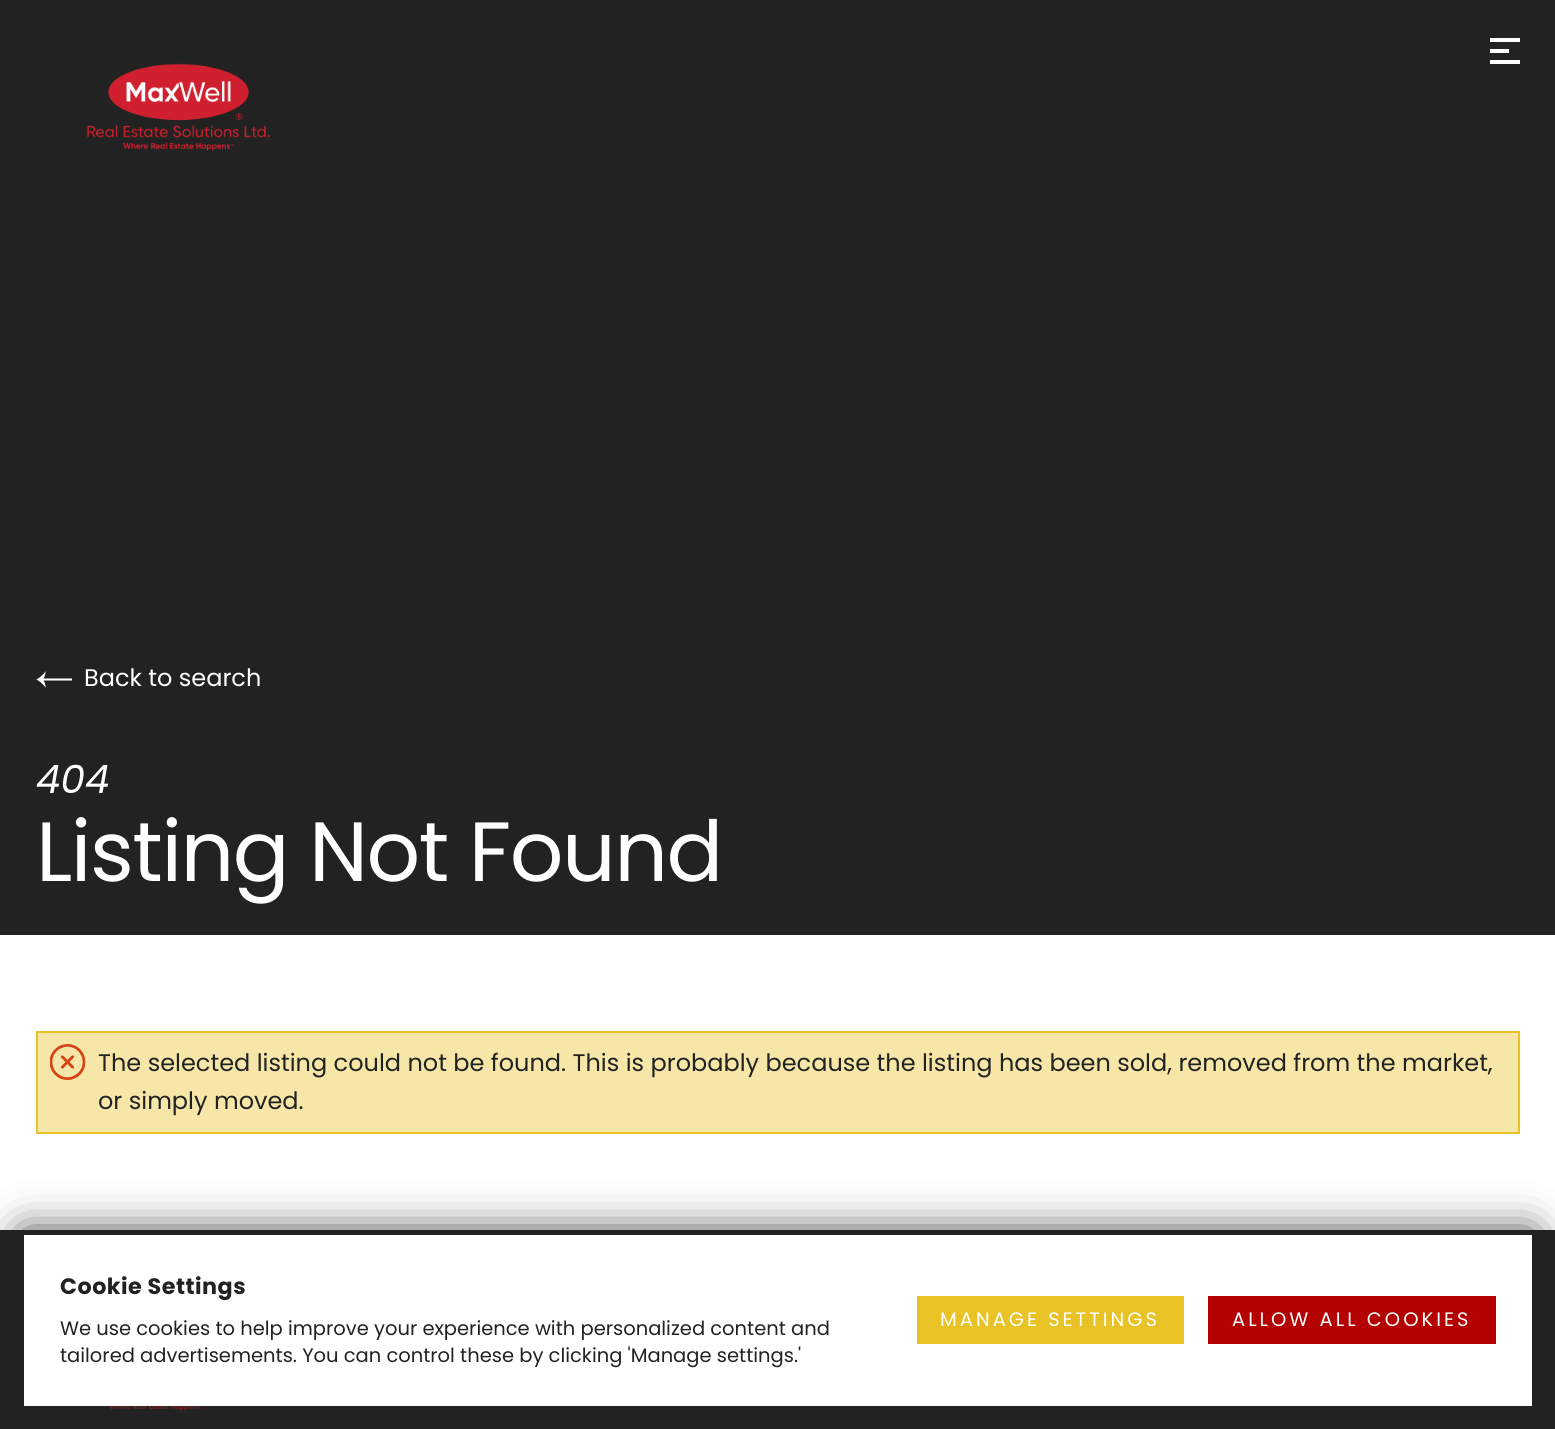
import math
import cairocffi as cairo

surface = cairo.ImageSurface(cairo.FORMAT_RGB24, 1555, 1429)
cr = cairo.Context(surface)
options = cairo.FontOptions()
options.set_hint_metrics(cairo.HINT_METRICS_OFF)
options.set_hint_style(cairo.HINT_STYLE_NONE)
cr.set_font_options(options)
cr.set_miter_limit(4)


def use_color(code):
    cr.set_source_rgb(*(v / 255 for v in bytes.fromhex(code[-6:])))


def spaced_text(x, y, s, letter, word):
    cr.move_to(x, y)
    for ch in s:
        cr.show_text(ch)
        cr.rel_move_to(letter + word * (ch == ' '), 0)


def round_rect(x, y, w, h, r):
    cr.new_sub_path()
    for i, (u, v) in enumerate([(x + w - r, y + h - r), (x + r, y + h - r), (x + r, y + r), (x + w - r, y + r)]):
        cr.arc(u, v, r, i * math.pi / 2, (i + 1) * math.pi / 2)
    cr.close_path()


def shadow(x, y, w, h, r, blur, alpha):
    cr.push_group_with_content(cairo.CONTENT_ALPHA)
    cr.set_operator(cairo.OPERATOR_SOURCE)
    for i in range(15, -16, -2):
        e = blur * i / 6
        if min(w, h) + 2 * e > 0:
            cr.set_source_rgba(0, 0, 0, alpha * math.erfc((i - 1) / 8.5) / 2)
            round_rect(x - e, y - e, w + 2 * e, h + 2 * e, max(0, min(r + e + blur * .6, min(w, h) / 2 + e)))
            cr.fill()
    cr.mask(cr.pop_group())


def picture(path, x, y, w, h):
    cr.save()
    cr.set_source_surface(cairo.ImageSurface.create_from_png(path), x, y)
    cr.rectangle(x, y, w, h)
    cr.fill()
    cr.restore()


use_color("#ffffff")
cr.paint()
use_color("#222222")
cr.rectangle(0, 0, 1555, 935)
cr.fill()
use_color("#ffffff")
cr.rectangle(1490, 38, 30, 4)
cr.fill()
cr.rectangle(1490, 49, 19, 4)
cr.fill()
cr.rectangle(1490, 60, 30, 4)
cr.fill()
picture("img1.png", 86, 63, 184, 88)
picture("img2.png", 36, 671, 36, 17)
cr.select_font_face("Poppins")
cr.set_font_size(24)
cr.move_to(84, 686)
cr.show_text("Back to search")
cr.select_font_face("Poppins", cairo.FONT_SLANT_ITALIC)
cr.set_font_size(39)
cr.move_to(36, 793)
cr.show_text("404")
cr.select_font_face("Poppins")
cr.set_font_size(84)
spaced_text(36, 881, "Listing Not Found", -1.5, 0)
use_color("#f6e7a8")
cr.rectangle(37, 1032, 1482, 101)
cr.fill_preserve()
use_color("#e9c325")
cr.stroke()
picture("img3.png", 50, 1044, 36, 36)
cr.set_font_size(24)
use_color("#222222")
cr.move_to(98, 1071)
cr.show_text("The selected listing could not be found. This is probably because the listing has been sold, removed from the market,")
cr.move_to(98, 1109)
cr.show_text("or simply moved.")
cr.rectangle(0, 1230, 1555, 199)
cr.fill()
picture("img4.png", 109, 1406, 94, 5)
use_color("#222222")
shadow(24, 1235, 1508, 171, 0, 22, 1)
use_color("#ffffff")
cr.rectangle(24, 1235, 1508, 171)
cr.fill()
cr.select_font_face("Poppins", cairo.FONT_SLANT_NORMAL, cairo.FONT_WEIGHT_BOLD)
cr.set_font_size(22.25)
use_color("#222222")
spaced_text(60, 1294, "Cookie Settings", 0.5, 0)
cr.select_font_face("Poppins")
cr.set_font_size(19.5)
cr.move_to(60, 1335)
cr.show_text("We use cookies to help improve your experience with personalized content and")
cr.move_to(60, 1362)
cr.show_text("tailored advertisements. You can control these by clicking 'Manage settings.'")
use_color("#e9c325")
cr.rectangle(917, 1296, 267, 48)
cr.fill()
use_color("#ffffff")
spaced_text(940, 1326, "MANAGE SETTINGS", 3, 0)
use_color("#b40101")
cr.rectangle(1208, 1296, 288, 48)
cr.fill()
use_color("#ffffff")
spaced_text(1232, 1326, "ALLOW ALL COOKIES", 3, 0)
surface.write_to_png("result.png")
